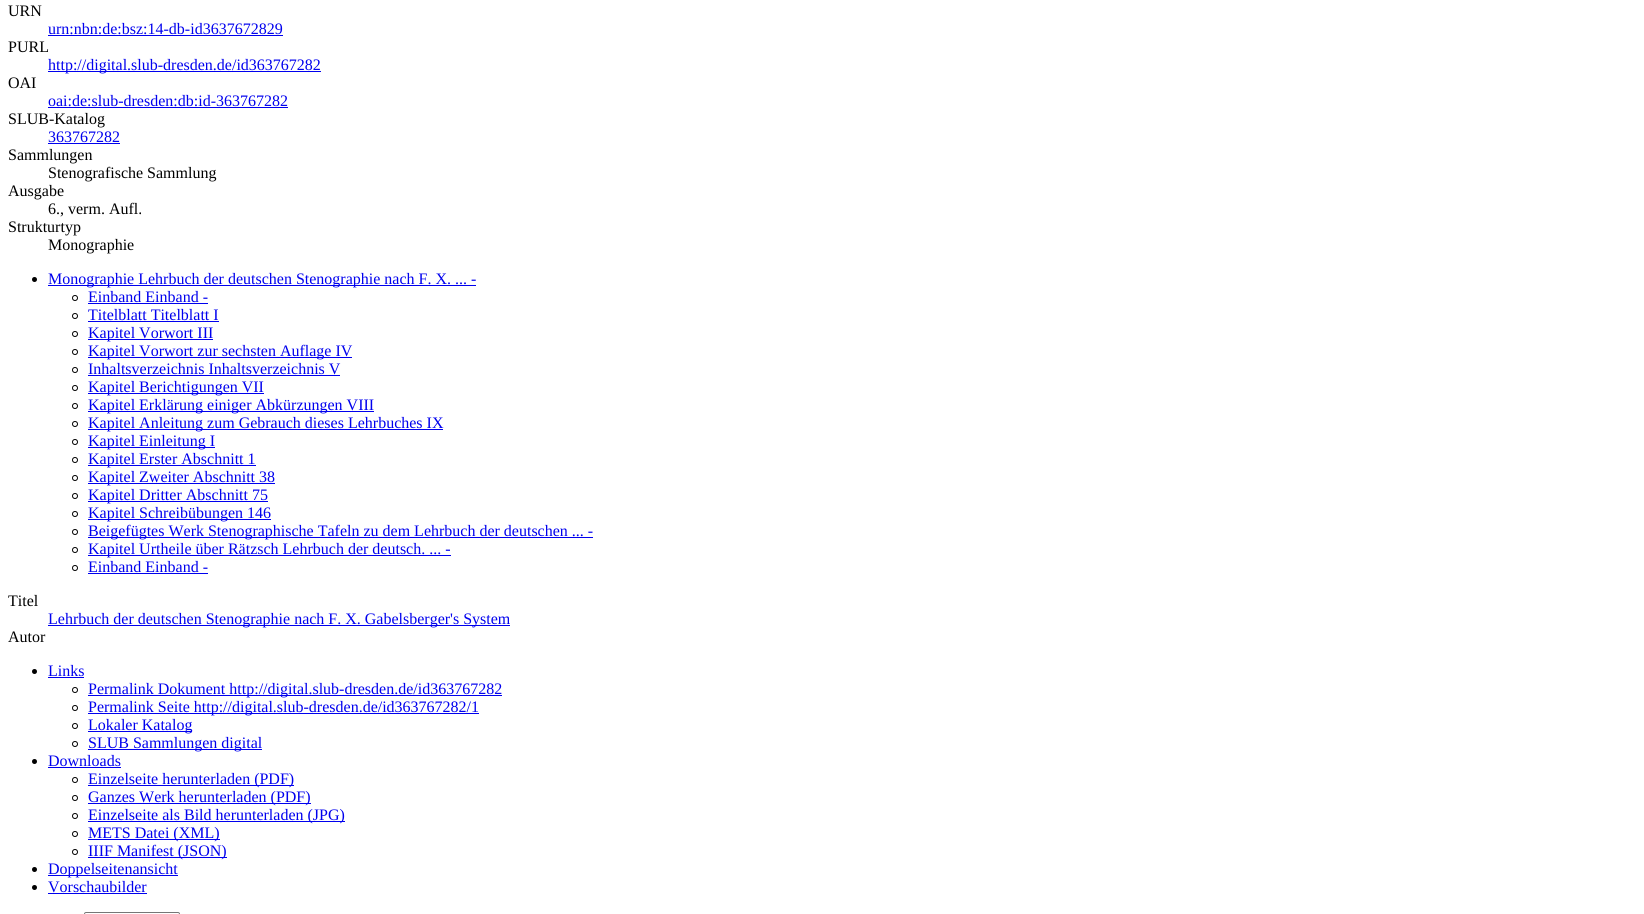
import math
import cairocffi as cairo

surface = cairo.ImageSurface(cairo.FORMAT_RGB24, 1644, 914)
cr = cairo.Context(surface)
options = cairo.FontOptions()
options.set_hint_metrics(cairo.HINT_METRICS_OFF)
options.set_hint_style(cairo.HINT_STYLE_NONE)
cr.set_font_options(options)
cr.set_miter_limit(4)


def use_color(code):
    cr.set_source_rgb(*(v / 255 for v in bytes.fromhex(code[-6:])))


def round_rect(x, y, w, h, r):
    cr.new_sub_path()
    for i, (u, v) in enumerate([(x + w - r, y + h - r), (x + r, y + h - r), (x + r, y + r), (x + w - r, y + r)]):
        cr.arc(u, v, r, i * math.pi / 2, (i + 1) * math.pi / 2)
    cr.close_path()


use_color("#ffffff")
cr.paint()
cr.select_font_face("Liberation Serif")
cr.set_font_size(16)
use_color("#000000")
cr.move_to(8, 16)
cr.show_text("URN")
use_color("#0000ee")
cr.move_to(48, 34)
cr.show_text("urn:nbn:de:bsz:14-db-id3637672829")
cr.rectangle(48, 35, 235, 1)
cr.fill()
use_color("#000000")
cr.move_to(8, 52)
cr.show_text("PURL")
use_color("#0000ee")
cr.rectangle(48, 71, 273, 1)
cr.fill()
cr.move_to(48, 70)
cr.show_text("http://digital.slub-dresden.de/id363767282")
use_color("#000000")
cr.move_to(8, 88)
cr.show_text("OAI")
use_color("#0000ee")
cr.move_to(48, 106)
cr.show_text("oai:de:slub-dresden:db:id-363767282")
cr.rectangle(48, 107, 240, 1)
cr.fill()
use_color("#000000")
cr.move_to(8, 124)
cr.show_text("SLUB-Katalog")
use_color("#0000ee")
cr.move_to(48, 142)
cr.show_text("363767282")
cr.rectangle(48, 143, 72, 1)
cr.fill()
use_color("#000000")
cr.move_to(8, 160)
cr.show_text("Sammlungen")
cr.move_to(48, 178)
cr.show_text("Stenografische Sammlung")
cr.move_to(8, 196)
cr.show_text("Ausgabe")
cr.move_to(48, 214)
cr.show_text("6., verm. Aufl.")
cr.move_to(8, 232)
cr.show_text("Strukturtyp")
cr.move_to(48, 250)
cr.show_text("Monographie")
cr.new_path()
cr.arc(34.5, 279.5, 2.5, 0, 2 * math.pi)
cr.fill()
use_color("#0000ee")
cr.rectangle(48, 285, 428, 1)
cr.fill()
cr.move_to(48, 284)
cr.show_text("Monographie Lehrbuch der deutschen Stenographie nach F. X. ... -")
cr.new_path()
cr.arc(75, 298, 2.5, 0, 2 * math.pi)
use_color("#000000")
cr.set_line_width(1)
cr.stroke()
use_color("#0000ee")
cr.move_to(88, 302)
cr.show_text("Einband Einband -")
cr.rectangle(88, 303, 120, 1)
cr.fill()
cr.arc(75, 316, 2.5, 0, 2 * math.pi)
use_color("#000000")
cr.stroke()
use_color("#0000ee")
cr.move_to(88, 320)
cr.show_text("Titelblatt Titelblatt I")
cr.rectangle(88, 321, 131, 1)
cr.fill()
cr.arc(75, 334, 2.5, 0, 2 * math.pi)
use_color("#000000")
cr.stroke()
use_color("#0000ee")
cr.rectangle(88, 339, 125, 1)
cr.fill()
cr.move_to(88, 338)
cr.show_text("Kapitel Vorwort III")
cr.new_path()
cr.arc(75, 352, 2.5, 0, 2 * math.pi)
use_color("#000000")
cr.stroke()
use_color("#0000ee")
cr.rectangle(88, 357, 264, 1)
cr.fill()
cr.move_to(88, 356)
cr.show_text("Kapitel Vorwort zur sechsten Auflage IV")
cr.new_path()
cr.arc(75, 370, 2.5, 0, 2 * math.pi)
use_color("#000000")
cr.stroke()
use_color("#0000ee")
cr.move_to(88, 374)
cr.show_text("Inhaltsverzeichnis Inhaltsverzeichnis V")
cr.rectangle(88, 375, 252, 1)
cr.fill()
cr.arc(75, 388, 2.5, 0, 2 * math.pi)
use_color("#000000")
cr.stroke()
use_color("#0000ee")
cr.rectangle(88, 393, 176, 1)
cr.fill()
cr.move_to(88, 392)
cr.show_text("Kapitel Berichtigungen VII")
cr.new_path()
cr.arc(75, 406, 2.5, 0, 2 * math.pi)
use_color("#000000")
cr.stroke()
use_color("#0000ee")
cr.rectangle(88, 411, 286, 1)
cr.fill()
cr.move_to(88, 410)
cr.show_text("Kapitel Erklärung einiger Abkürzungen VIII")
cr.new_path()
cr.arc(75, 424, 2.5, 0, 2 * math.pi)
use_color("#000000")
cr.stroke()
use_color("#0000ee")
cr.rectangle(88, 429, 355, 1)
cr.fill()
cr.move_to(88, 428)
cr.show_text("Kapitel Anleitung zum Gebrauch dieses Lehrbuches IX")
cr.new_path()
cr.arc(75, 442, 2.5, 0, 2 * math.pi)
use_color("#000000")
cr.stroke()
use_color("#0000ee")
cr.rectangle(88, 447, 127, 1)
cr.fill()
cr.move_to(88, 446)
cr.show_text("Kapitel Einleitung I")
cr.new_path()
cr.arc(75, 460, 2.5, 0, 2 * math.pi)
use_color("#000000")
cr.stroke()
use_color("#0000ee")
cr.rectangle(88, 465, 168, 1)
cr.fill()
cr.move_to(88, 464)
cr.show_text("Kapitel Erster Abschnitt 1")
cr.new_path()
cr.arc(75, 478, 2.5, 0, 2 * math.pi)
use_color("#000000")
cr.stroke()
use_color("#0000ee")
cr.rectangle(88, 483, 187, 1)
cr.fill()
cr.move_to(88, 482)
cr.show_text("Kapitel Zweiter Abschnitt 38")
cr.new_path()
cr.arc(75, 496, 2.5, 0, 2 * math.pi)
use_color("#000000")
cr.stroke()
use_color("#0000ee")
cr.rectangle(88, 501, 180, 1)
cr.fill()
cr.move_to(88, 500)
cr.show_text("Kapitel Dritter Abschnitt 75")
cr.new_path()
cr.arc(75, 514, 2.5, 0, 2 * math.pi)
use_color("#000000")
cr.stroke()
use_color("#0000ee")
cr.rectangle(88, 519, 183, 1)
cr.fill()
cr.move_to(88, 518)
cr.show_text("Kapitel Schreibübungen 146")
cr.new_path()
cr.arc(75, 532, 2.5, 0, 2 * math.pi)
use_color("#000000")
cr.stroke()
use_color("#0000ee")
cr.rectangle(88, 537, 505, 1)
cr.fill()
cr.move_to(88, 536)
cr.show_text("Beigefügtes Werk Stenographische Tafeln zu dem Lehrbuch der deutschen ... -")
cr.new_path()
cr.arc(75, 550, 2.5, 0, 2 * math.pi)
use_color("#000000")
cr.stroke()
use_color("#0000ee")
cr.rectangle(88, 555, 363, 1)
cr.fill()
cr.move_to(88, 554)
cr.show_text("Kapitel Urtheile über Rätzsch Lehrbuch der deutsch. ... -")
cr.new_path()
cr.arc(75, 568, 2.5, 0, 2 * math.pi)
use_color("#000000")
cr.stroke()
use_color("#0000ee")
cr.move_to(88, 572)
cr.show_text("Einband Einband -")
cr.rectangle(88, 573, 120, 1)
cr.fill()
use_color("#000000")
cr.move_to(8, 606)
cr.show_text("Titel")
use_color("#0000ee")
cr.rectangle(48, 625, 462, 1)
cr.fill()
cr.move_to(48, 624)
cr.show_text("Lehrbuch der deutschen Stenographie nach F. X. Gabelsberger's System")
use_color("#000000")
cr.move_to(8, 642)
cr.show_text("Autor")
cr.new_path()
cr.arc(34.5, 671.5, 2.5, 0, 2 * math.pi)
cr.fill()
use_color("#0000ee")
cr.move_to(48, 676)
cr.show_text("Links")
cr.rectangle(48, 677, 36, 1)
cr.fill()
cr.arc(75, 690, 2.5, 0, 2 * math.pi)
use_color("#000000")
cr.stroke()
use_color("#0000ee")
cr.rectangle(88, 695, 414, 1)
cr.fill()
cr.move_to(88, 694)
cr.show_text("Permalink Dokument http://digital.slub-dresden.de/id363767282")
cr.new_path()
cr.arc(75, 708, 2.5, 0, 2 * math.pi)
use_color("#000000")
cr.stroke()
use_color("#0000ee")
cr.rectangle(88, 713, 391, 1)
cr.fill()
cr.move_to(88, 712)
cr.show_text("Permalink Seite http://digital.slub-dresden.de/id363767282/1")
cr.new_path()
cr.arc(75, 726, 2.5, 0, 2 * math.pi)
use_color("#000000")
cr.stroke()
use_color("#0000ee")
cr.rectangle(88, 731, 104, 1)
cr.fill()
cr.move_to(88, 730)
cr.show_text("Lokaler Katalog")
cr.new_path()
cr.arc(75, 744, 2.5, 0, 2 * math.pi)
use_color("#000000")
cr.stroke()
use_color("#0000ee")
cr.rectangle(88, 749, 174, 1)
cr.fill()
cr.move_to(88, 748)
cr.show_text("SLUB Sammlungen digital")
use_color("#000000")
cr.new_path()
cr.arc(34.5, 761.5, 2.5, 0, 2 * math.pi)
cr.fill()
use_color("#0000ee")
cr.move_to(48, 766)
cr.show_text("Downloads")
cr.rectangle(48, 767, 73, 1)
cr.fill()
cr.arc(75, 780, 2.5, 0, 2 * math.pi)
use_color("#000000")
cr.stroke()
use_color("#0000ee")
cr.rectangle(88, 785, 206, 1)
cr.fill()
cr.move_to(88, 784)
cr.show_text("Einzelseite herunterladen (PDF)")
cr.new_path()
cr.arc(75, 798, 2.5, 0, 2 * math.pi)
use_color("#000000")
cr.stroke()
use_color("#0000ee")
cr.rectangle(88, 803, 223, 1)
cr.fill()
cr.move_to(88, 802)
cr.show_text("Ganzes Werk herunterladen (PDF)")
cr.new_path()
cr.arc(75, 816, 2.5, 0, 2 * math.pi)
use_color("#000000")
cr.stroke()
use_color("#0000ee")
cr.rectangle(88, 821, 257, 1)
cr.fill()
cr.move_to(88, 820)
cr.show_text("Einzelseite als Bild herunterladen (JPG)")
cr.new_path()
cr.arc(75, 834, 2.5, 0, 2 * math.pi)
use_color("#000000")
cr.stroke()
use_color("#0000ee")
cr.rectangle(88, 839, 132, 1)
cr.fill()
cr.move_to(88, 838)
cr.show_text("METS Datei (XML)")
cr.new_path()
cr.arc(75, 852, 2.5, 0, 2 * math.pi)
use_color("#000000")
cr.stroke()
use_color("#0000ee")
cr.rectangle(88, 857, 139, 1)
cr.fill()
cr.move_to(88, 856)
cr.show_text("IIIF Manifest (JSON)")
use_color("#000000")
cr.new_path()
cr.arc(34.5, 869.5, 2.5, 0, 2 * math.pi)
cr.fill()
use_color("#0000ee")
cr.rectangle(48, 875, 130, 1)
cr.fill()
cr.move_to(48, 874)
cr.show_text("Doppelseitenansicht")
use_color("#000000")
cr.new_path()
cr.arc(34.5, 887.5, 2.5, 0, 2 * math.pi)
cr.fill()
use_color("#0000ee")
cr.move_to(48, 892)
cr.show_text("Vorschaubilder")
cr.rectangle(48, 893, 99, 1)
cr.fill()
round_rect(84.5, 912.5, 95, 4, 1.5)
use_color("#767676")
cr.stroke()
surface.write_to_png("result.png")
